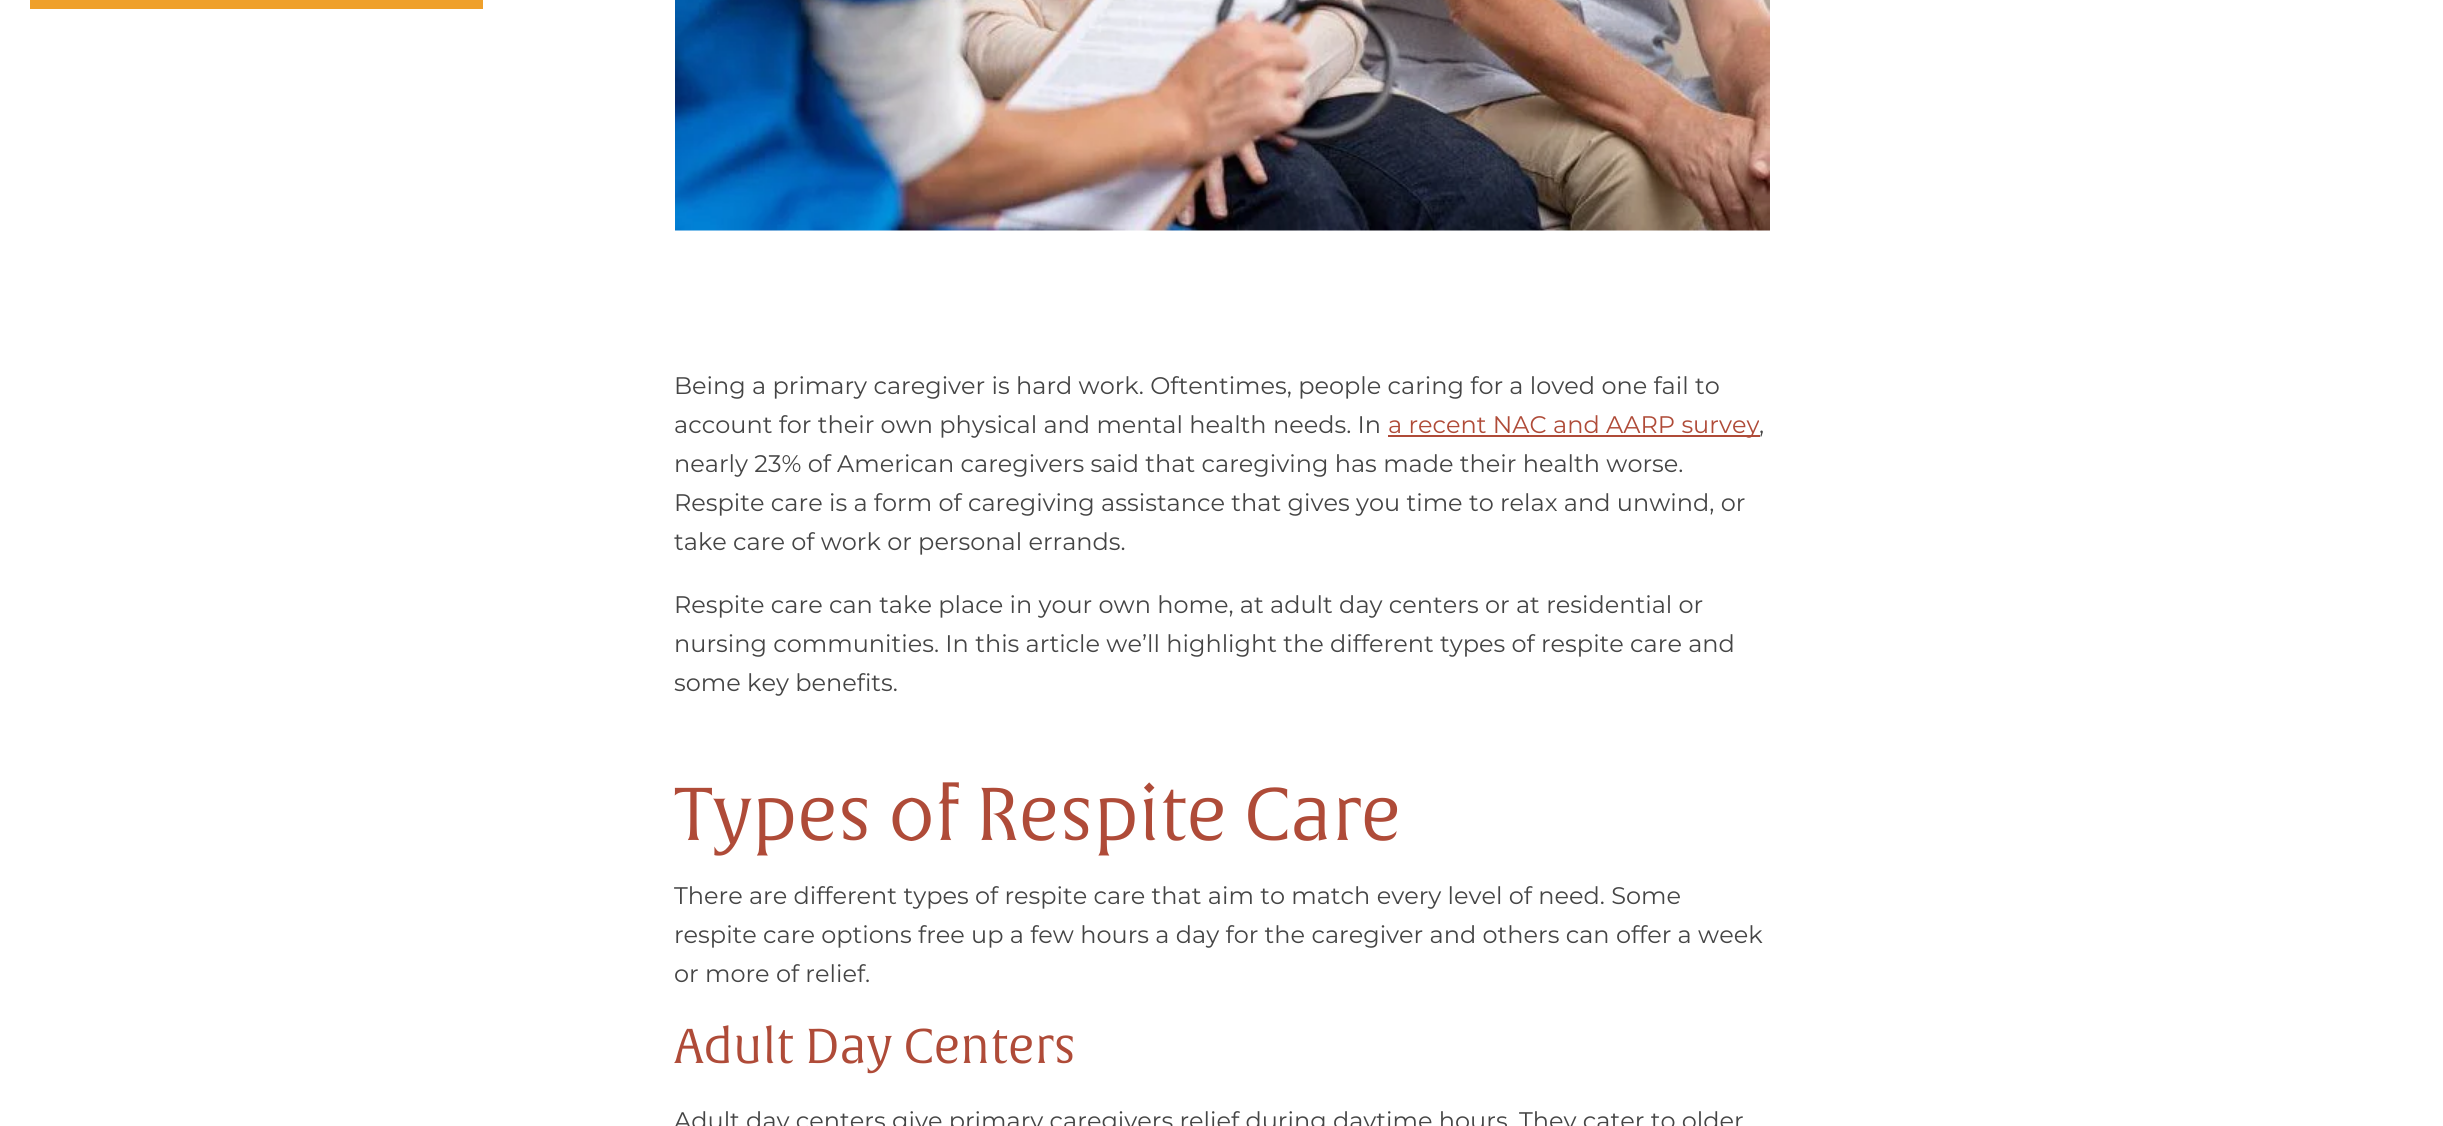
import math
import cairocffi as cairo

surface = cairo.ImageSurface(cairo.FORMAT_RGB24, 2443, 1126)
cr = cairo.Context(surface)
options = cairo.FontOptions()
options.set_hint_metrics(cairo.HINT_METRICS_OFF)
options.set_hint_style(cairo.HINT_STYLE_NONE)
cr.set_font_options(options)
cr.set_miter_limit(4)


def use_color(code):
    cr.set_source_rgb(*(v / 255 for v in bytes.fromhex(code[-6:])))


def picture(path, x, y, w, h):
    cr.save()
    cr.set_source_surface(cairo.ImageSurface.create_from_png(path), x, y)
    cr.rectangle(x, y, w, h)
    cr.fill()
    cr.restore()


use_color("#ffffff")
cr.paint()
use_color("#efa02b")
cr.rectangle(30, 0, 453, 9)
cr.fill()
picture("img1.png", 675, 0, 1095, 231)
cr.select_font_face("Montserrat")
cr.set_font_size(24)
use_color("#454545")
cr.move_to(674, 394)
cr.show_text("Being a primary caregiver is hard work. Oftentimes, people caring for a loved one fail to")
cr.move_to(674, 433)
cr.show_text("account for their own physical and mental health needs. In")
use_color("#af4b38")
cr.rectangle(1388, 435, 372, 2)
cr.fill()
cr.move_to(1388, 433)
cr.show_text("a recent NAC and AARP survey")
use_color("#454545")
cr.move_to(1759, 433)
cr.show_text(",")
cr.move_to(674, 472)
cr.show_text("nearly 23% of American caregivers said that caregiving has made their health worse.")
cr.move_to(674, 511)
cr.show_text("Respite care is a form of caregiving assistance that gives you time to relax and unwind, or")
cr.move_to(674, 550)
cr.show_text("take care of work or personal errands.")
cr.move_to(674, 613)
cr.show_text("Respite care can take place in your own home, at adult day centers or at residential or")
cr.move_to(674, 652)
cr.show_text("nursing communities. In this article we’ll highlight the different types of respite care and")
cr.move_to(674, 691)
cr.show_text("some key benefits.")
cr.select_font_face("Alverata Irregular")
cr.set_font_size(73.25)
use_color("#af4b38")
cr.move_to(674, 840)
cr.show_text("Types of Respite Care")
cr.select_font_face("Montserrat")
cr.set_font_size(24)
use_color("#454545")
cr.move_to(674, 904)
cr.show_text("There are different types of respite care that aim to match every level of need. Some")
cr.move_to(674, 943)
cr.show_text("respite care options free up a few hours a day for the caregiver and others can offer a week")
cr.move_to(674, 982)
cr.show_text("or more of relief.")
cr.select_font_face("Alverata Irregular")
cr.set_font_size(48)
use_color("#af4b38")
cr.move_to(674, 1063)
cr.show_text("Adult Day Centers")
cr.select_font_face("Montserrat")
cr.set_font_size(24)
use_color("#454545")
cr.move_to(674, 1129)
cr.show_text("Adult day centers give primary caregivers relief during daytime hours. They cater to older")
surface.write_to_png("result.png")
